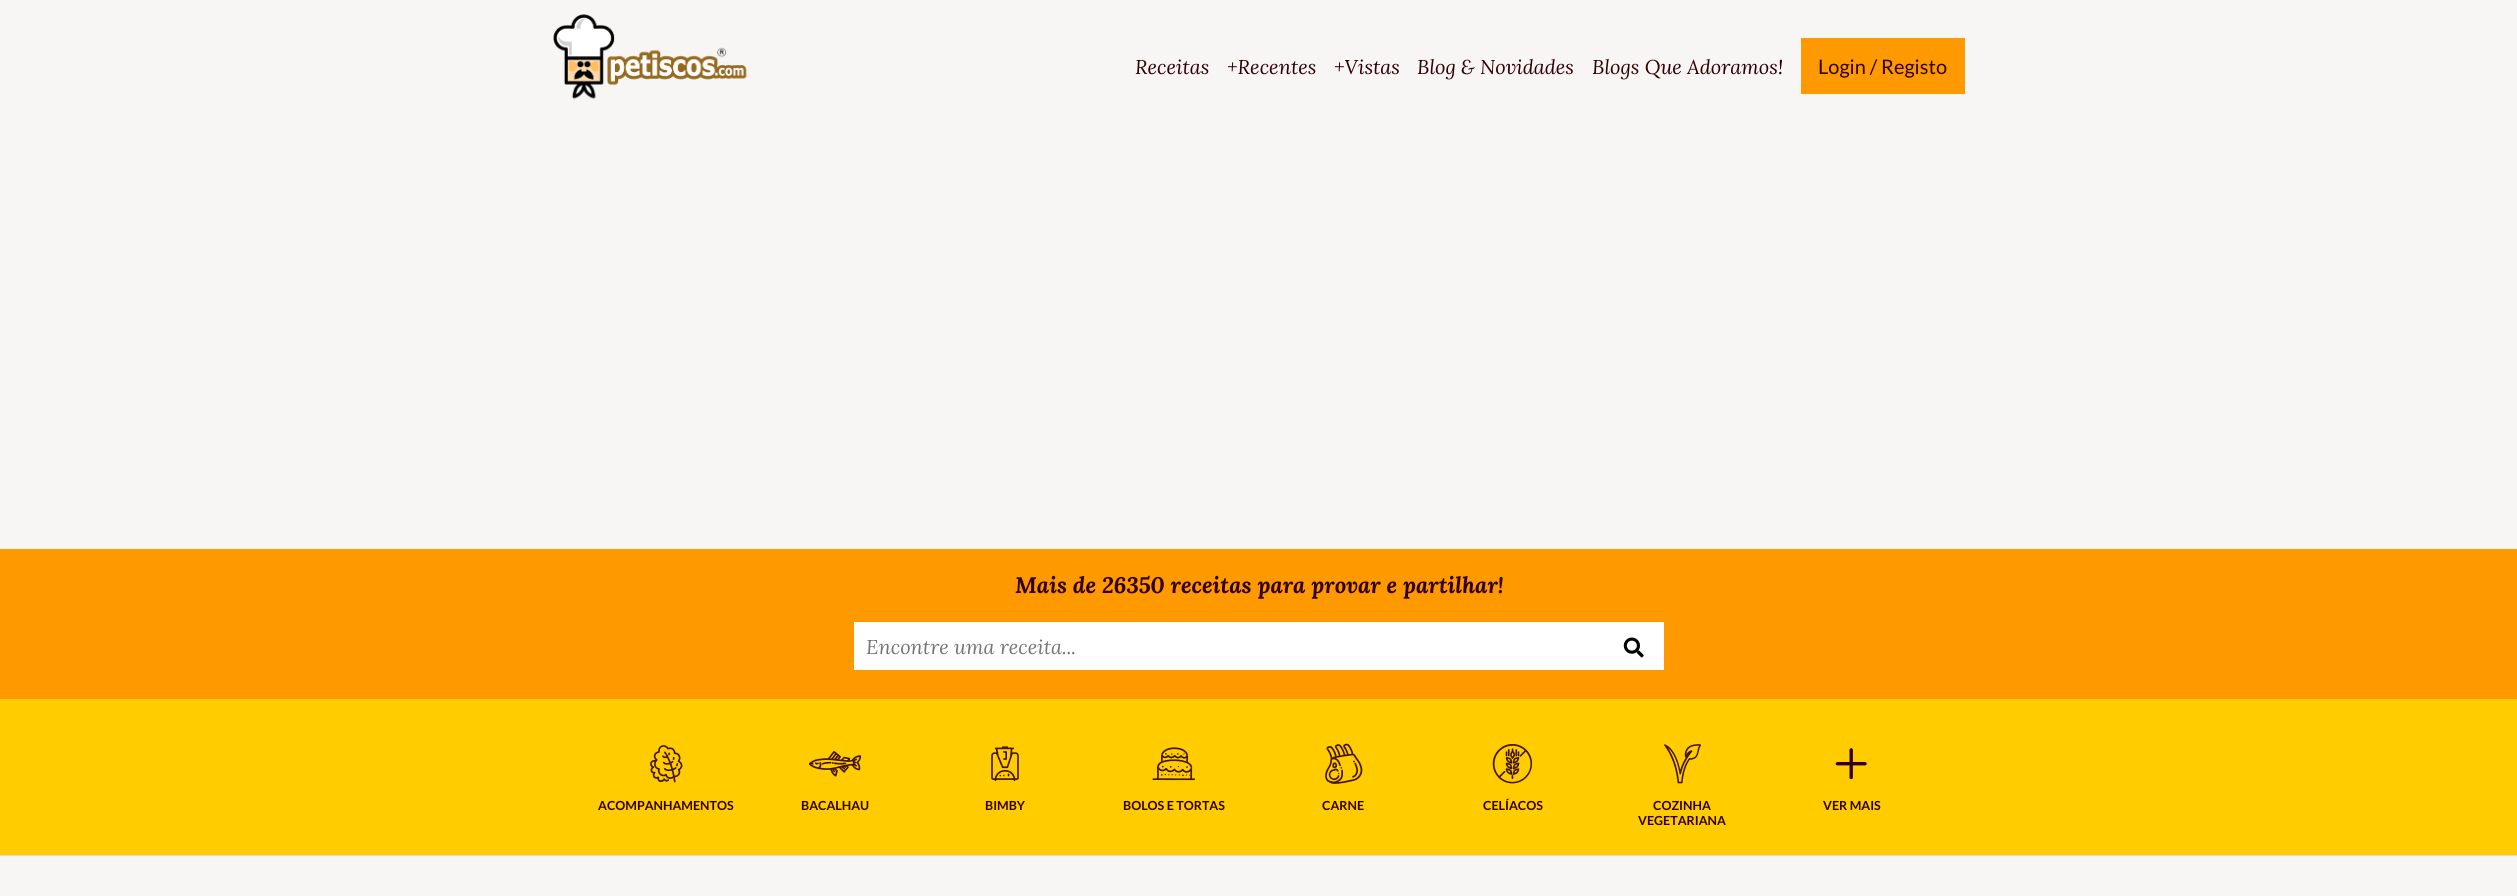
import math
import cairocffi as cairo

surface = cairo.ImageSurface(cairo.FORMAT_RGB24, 2517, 896)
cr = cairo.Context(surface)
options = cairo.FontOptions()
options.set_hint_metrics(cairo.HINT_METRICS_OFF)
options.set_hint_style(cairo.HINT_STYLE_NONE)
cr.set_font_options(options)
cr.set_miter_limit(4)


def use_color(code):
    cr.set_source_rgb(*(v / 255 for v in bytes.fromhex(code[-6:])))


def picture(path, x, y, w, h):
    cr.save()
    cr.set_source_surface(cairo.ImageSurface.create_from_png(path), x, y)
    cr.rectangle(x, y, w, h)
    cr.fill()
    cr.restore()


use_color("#f8f6f5")
cr.paint()
picture("img1.png", 553, 14, 194, 85)
cr.select_font_face("Lora", cairo.FONT_SLANT_ITALIC)
cr.set_font_size(20)
use_color("#310001")
cr.move_to(1135, 74)
cr.show_text("Receitas")
cr.move_to(1227, 74)
cr.show_text("+Recentes")
cr.move_to(1334, 74)
cr.show_text("+Vistas")
cr.move_to(1417, 74)
cr.show_text("Blog & Novidades")
cr.move_to(1592, 74)
cr.show_text("Blogs Que Adoramos!")
use_color("#ff9900")
cr.rectangle(1801, 38, 164, 56)
cr.fill()
cr.select_font_face("Lato")
use_color("#310001")
cr.move_to(1818, 74)
cr.show_text("Login / Registo")
use_color("#ff9900")
cr.rectangle(0, 549, 2517, 150)
cr.fill()
use_color("#e4d9d1")
cr.rectangle(0, 855, 2517, 1)
cr.fill()
cr.select_font_face("Lora", cairo.FONT_SLANT_ITALIC, cairo.FONT_WEIGHT_BOLD)
cr.set_font_size(22.5)
use_color("#310001")
cr.move_to(1015, 593)
cr.show_text("Mais de 26350 receitas para provar e partilhar!")
use_color("#ffffff")
cr.rectangle(854, 622, 810, 48)
cr.fill()
cr.select_font_face("Lora", cairo.FONT_SLANT_ITALIC)
cr.set_font_size(20)
use_color("#757575")
cr.move_to(866, 654)
cr.show_text("Encontre uma receita...")
picture("img2.png", 1623, 637, 21, 21)
use_color("#ffcc00")
cr.rectangle(0, 699, 2517, 156)
cr.fill()
picture("img3.png", 650, 745, 33, 38)
cr.select_font_face("Lato", cairo.FONT_SLANT_NORMAL, cairo.FONT_WEIGHT_BOLD)
cr.set_font_size(12.5)
use_color("#310001")
cr.move_to(598, 810)
cr.show_text("ACOMPANHAMENTOS")
picture("img4.png", 809, 751, 52, 26)
cr.move_to(801, 810)
cr.show_text("BACALHAU")
picture("img5.png", 991, 746, 28, 36)
cr.move_to(985, 810)
cr.show_text("BIMBY")
picture("img6.png", 1152, 747, 44, 34)
cr.move_to(1123, 810)
cr.show_text("BOLOS E TORTAS")
picture("img7.png", 1325, 743, 38, 41)
cr.move_to(1322, 810)
cr.show_text("CARNE")
picture("img8.png", 1492, 744, 41, 40)
cr.move_to(1483, 810)
cr.show_text("CELÍACOS")
picture("img9.png", 1664, 744, 37, 40)
cr.move_to(1653, 810)
cr.show_text("COZINHA")
cr.move_to(1638, 825)
cr.show_text("VEGETARIANA")
picture("img10.png", 1835, 748, 32, 32)
cr.move_to(1823, 810)
cr.show_text("VER MAIS")
surface.write_to_png("result.png")
